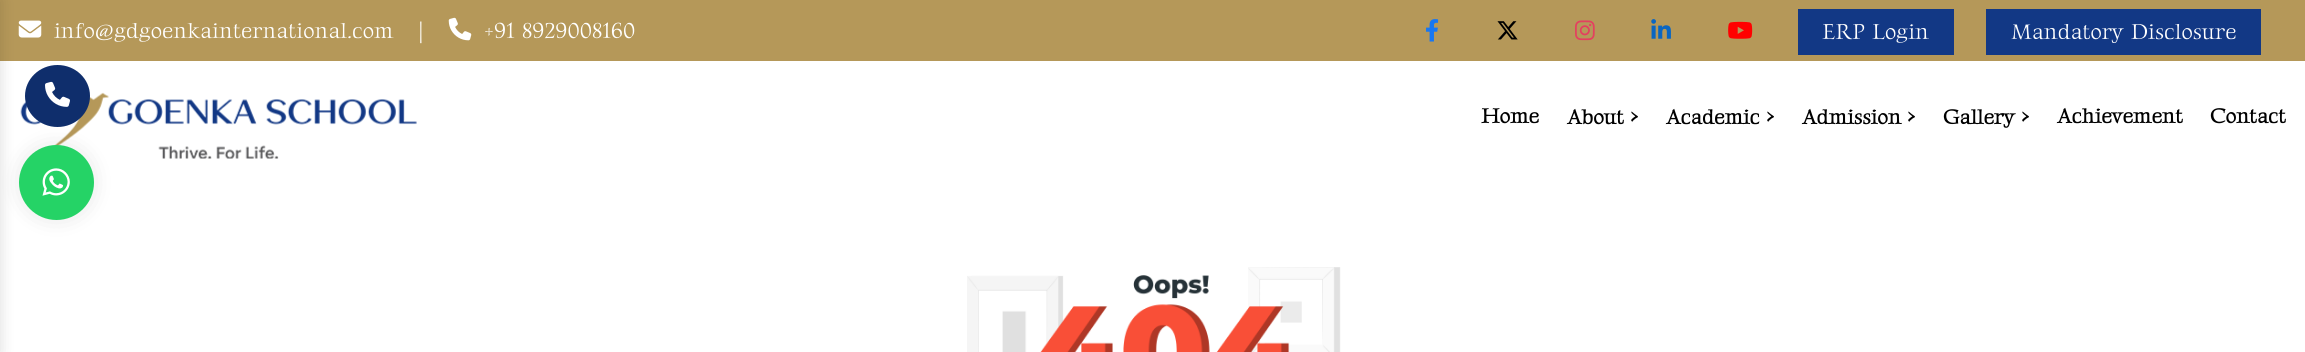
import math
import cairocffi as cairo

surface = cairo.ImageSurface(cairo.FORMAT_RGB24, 2305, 352)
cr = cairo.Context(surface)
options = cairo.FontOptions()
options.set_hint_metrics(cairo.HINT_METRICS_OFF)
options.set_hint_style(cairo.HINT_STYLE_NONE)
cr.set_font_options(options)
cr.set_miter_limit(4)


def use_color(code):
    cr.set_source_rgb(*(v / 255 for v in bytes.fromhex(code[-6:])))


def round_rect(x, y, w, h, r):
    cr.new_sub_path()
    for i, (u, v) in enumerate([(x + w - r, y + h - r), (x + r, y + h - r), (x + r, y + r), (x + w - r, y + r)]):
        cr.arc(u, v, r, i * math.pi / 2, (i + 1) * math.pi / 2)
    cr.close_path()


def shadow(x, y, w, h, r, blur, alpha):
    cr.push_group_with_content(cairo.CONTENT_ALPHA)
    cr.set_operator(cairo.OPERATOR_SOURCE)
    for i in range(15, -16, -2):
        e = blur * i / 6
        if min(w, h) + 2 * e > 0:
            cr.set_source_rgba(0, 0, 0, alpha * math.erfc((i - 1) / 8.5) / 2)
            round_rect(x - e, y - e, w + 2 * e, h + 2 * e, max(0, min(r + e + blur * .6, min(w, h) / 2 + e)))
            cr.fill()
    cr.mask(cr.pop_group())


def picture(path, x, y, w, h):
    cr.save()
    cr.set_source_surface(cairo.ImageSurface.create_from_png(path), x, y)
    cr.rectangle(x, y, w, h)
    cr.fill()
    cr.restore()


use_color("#ffffff")
cr.paint()
use_color("#b59859")
cr.rectangle(0, 0, 2305, 61)
cr.fill()
picture("img1.png", 18, 20, 24, 18)
picture("img8.png", 20, 92, 397, 67)
use_color("#000000")
shadow(25, 151, 63, 63, 31.5, 12.5, 0.15)
use_color("#25d366")
cr.arc(56.5, 182.5, 37.5, 0, 2 * math.pi)
cr.fill()
use_color("#000000")
shadow(-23, 0, 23, 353, 0, 7.5, 0.14)
cr.select_font_face("Gideon Roman")
cr.set_font_size(22.5)
use_color("#ffffff")
cr.move_to(54, 38)
cr.show_text("info@gdgoenkainternational.com")
cr.move_to(418, 38)
cr.show_text("|")
picture("img2.png", 448, 17, 24, 24)
cr.move_to(484, 38)
cr.show_text("+91 8929008160")
picture("img3.png", 1426, 19, 13, 23)
picture("img4.png", 1497, 21, 21, 19)
picture("img5.png", 1575, 20, 20, 21)
picture("img6.png", 1651, 19, 20, 20)
picture("img7.png", 1728, 21, 25, 18)
use_color("#123885")
cr.rectangle(1798, 9, 156, 46)
cr.fill()
use_color("#ffffff")
cr.move_to(1822, 39)
cr.show_text("ERP Login")
use_color("#123885")
cr.rectangle(1986, 9, 275, 46)
cr.fill()
use_color("#ffffff")
cr.move_to(2011, 39)
cr.show_text("Mandatory Disclosure")
cr.select_font_face("Gideon Roman", cairo.FONT_SLANT_NORMAL, cairo.FONT_WEIGHT_BOLD)
cr.set_font_size(21.25)
use_color("#000000")
cr.move_to(1481, 123)
cr.show_text("Home")
cr.move_to(1567, 124)
cr.show_text("About")
cr.set_font_size(22.5)
cr.move_to(1630, 124)
cr.show_text(">")
cr.set_font_size(21.25)
cr.move_to(1666, 124)
cr.show_text("Academic")
cr.set_font_size(22.5)
cr.move_to(1766, 124)
cr.show_text(">")
cr.set_font_size(21.25)
cr.move_to(1802, 124)
cr.show_text("Admission")
cr.set_font_size(22.5)
cr.move_to(1907, 124)
cr.show_text(">")
cr.set_font_size(21.25)
cr.move_to(1943, 124)
cr.show_text("Gallery")
cr.set_font_size(22.5)
cr.move_to(2021, 124)
cr.show_text(">")
cr.set_font_size(21.25)
cr.move_to(2057, 123)
cr.show_text("Achievement")
cr.move_to(2210, 123)
cr.show_text("Contact")
use_color("#0f2e6c")
cr.new_path()
cr.move_to(57.5, 65)
cr.curve_to(75.5, 65, 90, 79, 90, 96)
cr.curve_to(90, 113, 75.5, 127, 57.5, 127)
cr.curve_to(39.5, 127, 25, 113, 25, 96)
cr.curve_to(25, 79, 39.5, 65, 57.5, 65)
cr.close_path()
cr.fill()
picture("img9.png", 45, 81, 25, 26)
picture("img10.png", 42, 168, 28, 28)
picture("img11.png", 967, 267, 374, 85)
surface.write_to_png("result.png")
